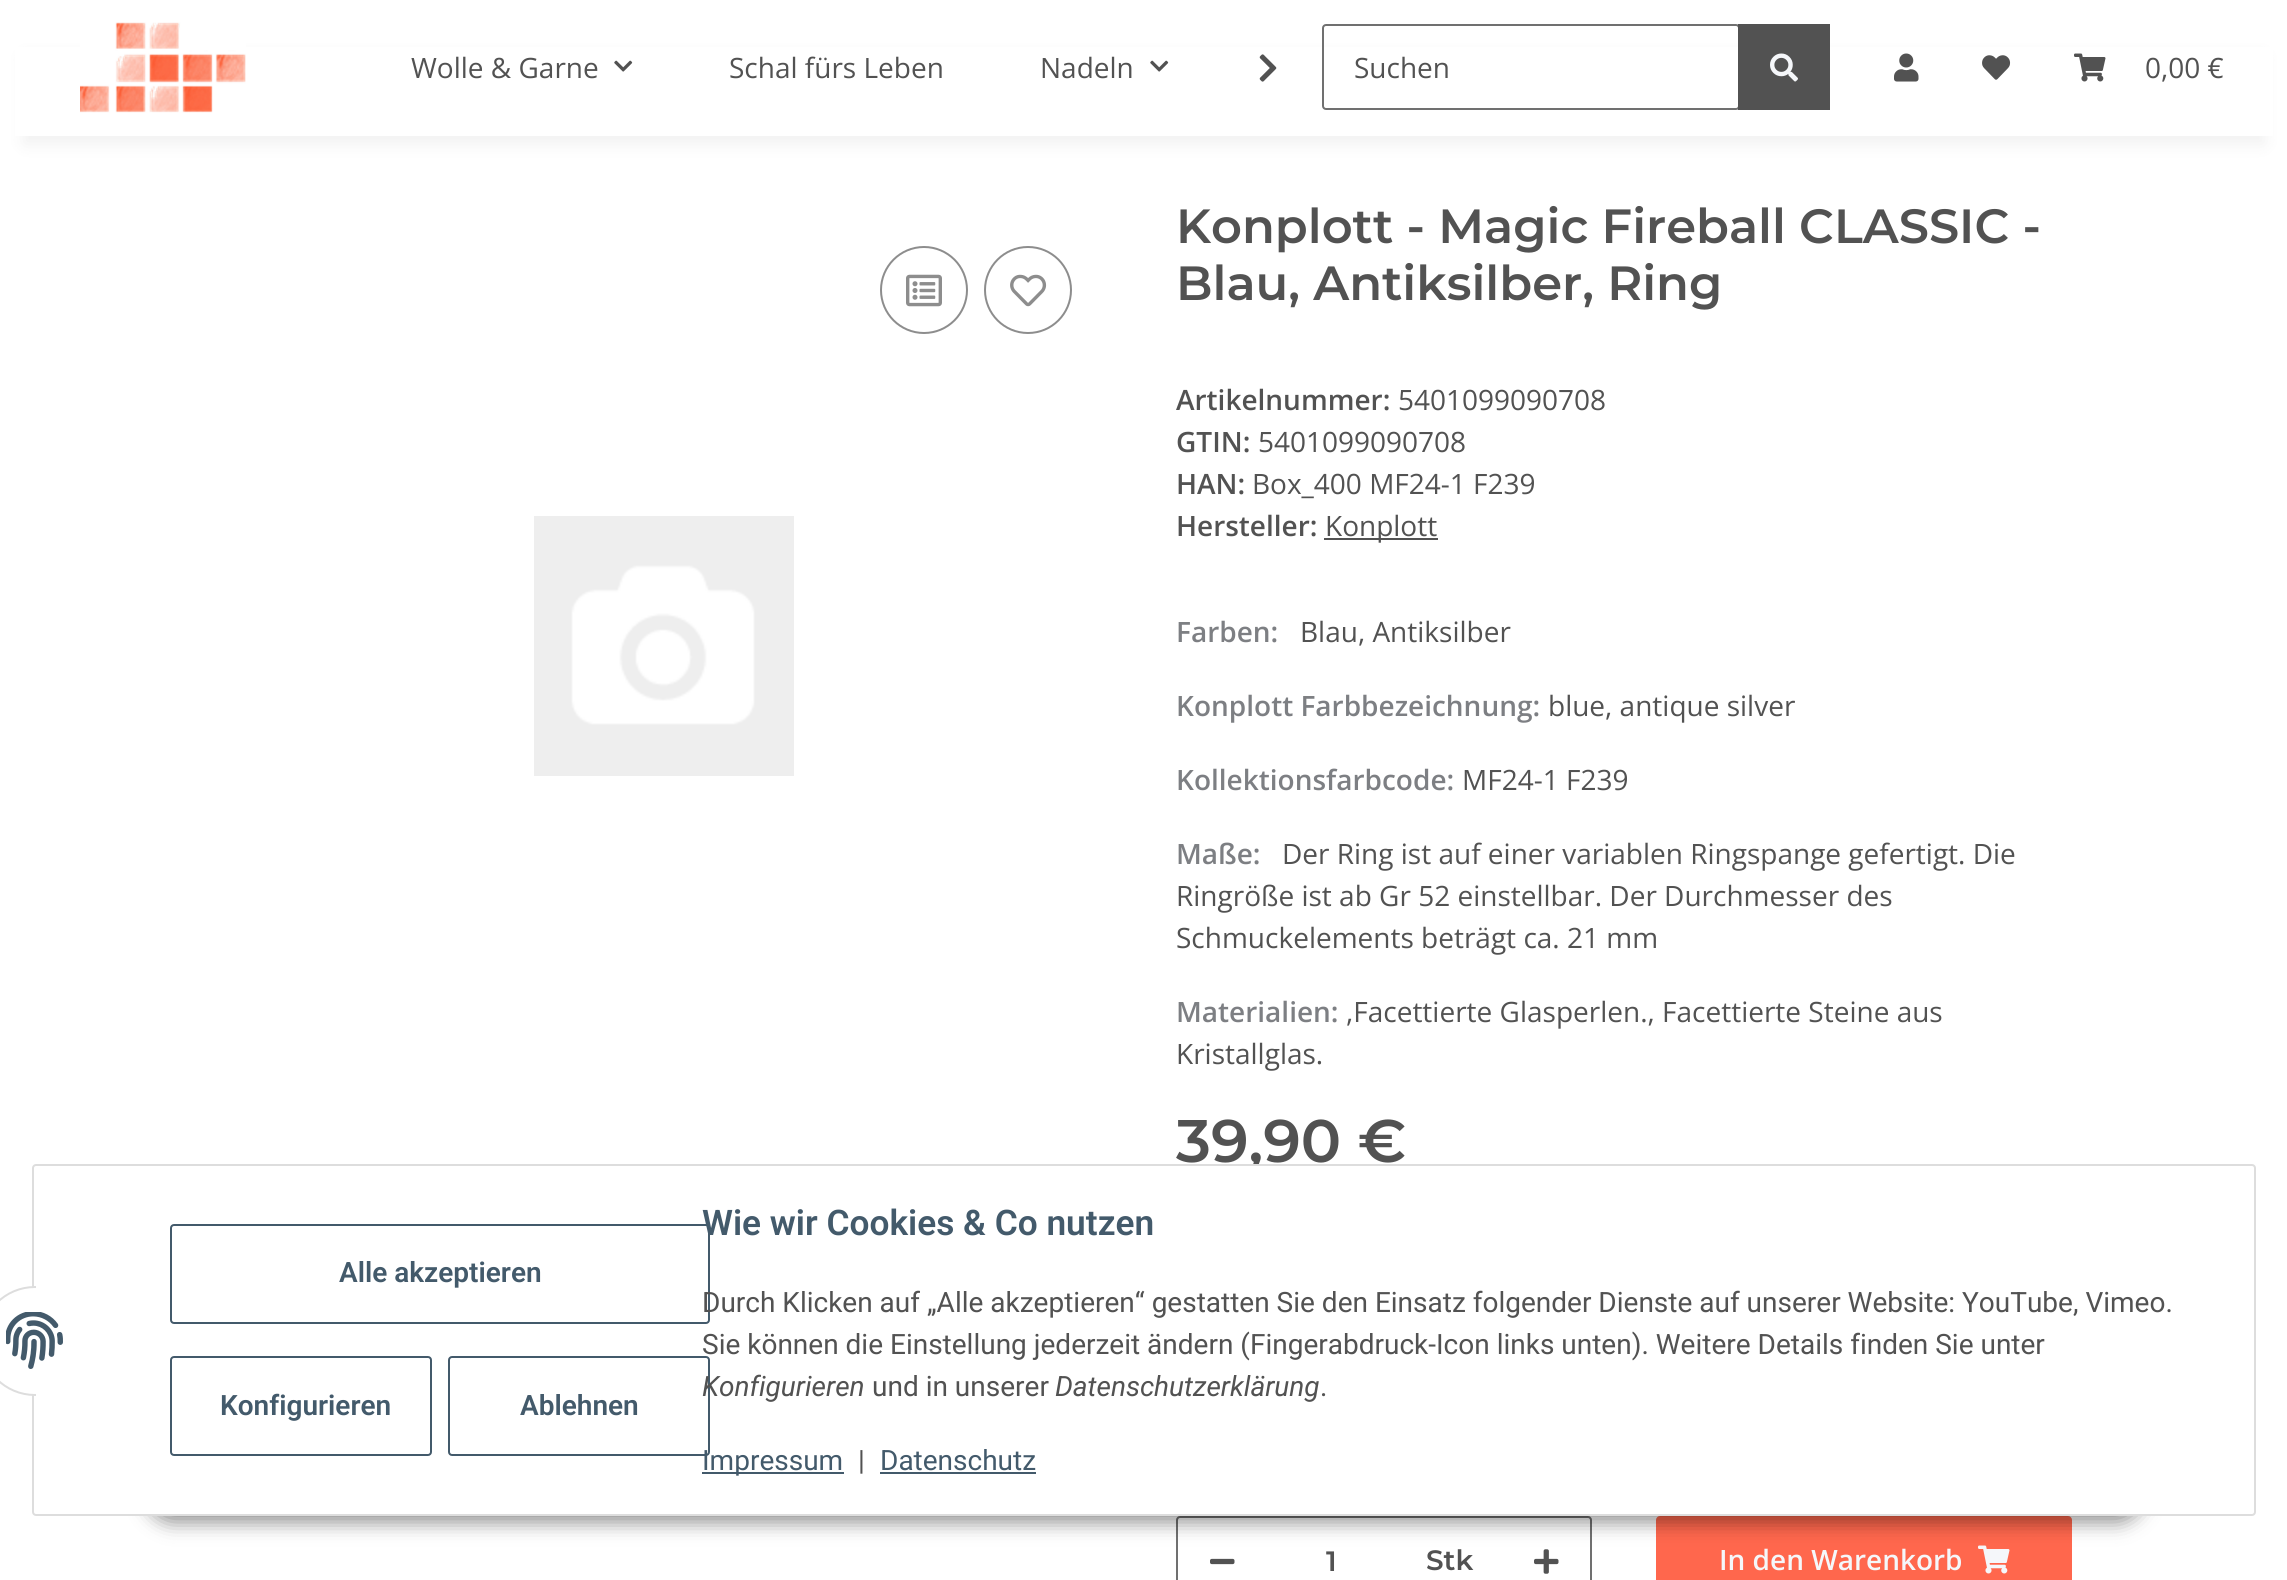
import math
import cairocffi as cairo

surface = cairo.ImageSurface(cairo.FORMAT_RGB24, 2287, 1580)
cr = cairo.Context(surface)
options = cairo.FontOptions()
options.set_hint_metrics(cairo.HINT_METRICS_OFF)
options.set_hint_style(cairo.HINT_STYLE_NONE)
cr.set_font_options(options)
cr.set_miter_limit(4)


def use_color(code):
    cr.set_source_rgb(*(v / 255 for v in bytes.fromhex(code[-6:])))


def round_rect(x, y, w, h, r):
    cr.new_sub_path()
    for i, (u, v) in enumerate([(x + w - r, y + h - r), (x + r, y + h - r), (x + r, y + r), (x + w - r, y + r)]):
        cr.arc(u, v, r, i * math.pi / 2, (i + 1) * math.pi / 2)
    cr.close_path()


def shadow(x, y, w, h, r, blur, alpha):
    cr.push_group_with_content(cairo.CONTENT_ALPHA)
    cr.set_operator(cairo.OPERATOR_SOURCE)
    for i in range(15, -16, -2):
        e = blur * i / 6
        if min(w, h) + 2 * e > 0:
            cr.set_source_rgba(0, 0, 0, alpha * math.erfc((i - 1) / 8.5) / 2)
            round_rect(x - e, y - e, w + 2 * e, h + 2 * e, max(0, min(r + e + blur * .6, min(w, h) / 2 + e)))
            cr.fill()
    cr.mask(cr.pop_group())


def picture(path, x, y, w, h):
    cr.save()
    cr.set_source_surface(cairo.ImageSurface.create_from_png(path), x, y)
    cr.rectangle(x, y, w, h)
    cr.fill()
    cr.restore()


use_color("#ffffff")
cr.paint()
use_color("#000000")
shadow(24, 56, 2240, 88, 0, 9, 0.06)
use_color("#ffffff")
cr.rectangle(15, 47, 2258, 89)
cr.fill()
picture("img1.png", 80, 22, 166, 91)
cr.select_font_face("Open Sans")
cr.set_font_size(28)
use_color("#525252")
cr.move_to(411, 78)
cr.show_text("Wolle & Garne")
picture("img2.png", 614, 60, 19, 12)
cr.move_to(729, 78)
cr.show_text("Schal fürs Leben")
cr.move_to(1040, 78)
cr.show_text("Nadeln")
picture("img2.png", 1150, 60, 19, 12)
picture("img3.png", 1259, 54, 18, 28)
round_rect(1323, 25, 416, 84, 3)
use_color("#707070")
cr.stroke()
use_color("#525252")
cr.move_to(1354, 78)
cr.show_text("Suchen")
cr.rectangle(1738, 24, 92, 86)
cr.fill()
picture("img4.png", 1770, 53, 28, 29)
picture("img5.png", 1894, 53, 25, 29)
picture("img6.png", 1982, 55, 29, 25)
picture("img7.png", 2074, 53, 32, 29)
cr.move_to(2145, 78)
cr.show_text("0,00 €")
cr.new_path()
cr.arc(924, 290, 43, 0, 2 * math.pi)
use_color("#8d8d8d")
cr.stroke()
picture("img8.png", 906, 274, 36, 33)
cr.arc(1028, 290, 43, 0, 2 * math.pi)
cr.stroke()
picture("img9.png", 1010, 274, 37, 33)
picture("img10.png", 534, 516, 260, 260)
cr.select_font_face("Montserrat SemiBold")
cr.set_font_size(48)
use_color("#525252")
cr.move_to(1176, 243)
cr.show_text("Konplott - Magic Fireball CLASSIC -")
cr.move_to(1176, 300)
cr.show_text("Blau, Antiksilber, Ring")
cr.select_font_face("Open Sans SemiBold")
cr.set_font_size(28)
cr.move_to(1176, 410)
cr.show_text("Artikelnummer:")
cr.select_font_face("Open Sans")
cr.move_to(1398, 410)
cr.show_text("5401099090708")
cr.select_font_face("Open Sans SemiBold")
cr.move_to(1176, 452)
cr.show_text("GTIN:")
cr.select_font_face("Open Sans")
cr.move_to(1258, 452)
cr.show_text("5401099090708")
cr.select_font_face("Open Sans SemiBold")
cr.move_to(1176, 494)
cr.show_text("HAN:")
cr.select_font_face("Open Sans")
cr.move_to(1252, 494)
cr.show_text("Box_400 MF24-1 F239")
cr.select_font_face("Open Sans SemiBold")
cr.move_to(1176, 536)
cr.show_text("Hersteller:")
cr.rectangle(1324, 538, 114, 2)
cr.fill()
cr.select_font_face("Open Sans")
cr.move_to(1325, 536)
cr.show_text("Konplott")
cr.select_font_face("Open Sans SemiBold")
use_color("#7d7f83")
cr.move_to(1176, 642)
cr.show_text("Farben:")
cr.select_font_face("Open Sans")
use_color("#525252")
cr.move_to(1300, 642)
cr.show_text("Blau, Antiksilber")
cr.select_font_face("Open Sans SemiBold")
use_color("#7d7f83")
cr.move_to(1176, 716)
cr.show_text("Konplott Farbbezeichnung:")
cr.select_font_face("Open Sans")
use_color("#525252")
cr.move_to(1548, 716)
cr.show_text("blue, antique silver")
cr.select_font_face("Open Sans SemiBold")
use_color("#7d7f83")
cr.move_to(1176, 790)
cr.show_text("Kollektionsfarbcode:")
cr.select_font_face("Open Sans")
use_color("#525252")
cr.move_to(1462, 790)
cr.show_text("MF24-1 F239")
cr.select_font_face("Open Sans SemiBold")
use_color("#7d7f83")
cr.move_to(1176, 864)
cr.show_text("Maße:")
cr.select_font_face("Open Sans")
use_color("#525252")
cr.move_to(1282, 864)
cr.show_text("Der Ring ist auf einer variablen Ringspange gefertigt. Die")
cr.move_to(1176, 906)
cr.show_text("Ringröße ist ab Gr 52 einstellbar. Der Durchmesser des")
cr.move_to(1176, 948)
cr.show_text("Schmuckelements beträgt ca. 21 mm")
cr.select_font_face("Open Sans SemiBold")
use_color("#7d7f83")
cr.move_to(1176, 1022)
cr.show_text("Materialien:")
cr.select_font_face("Open Sans")
use_color("#525252")
cr.move_to(1346, 1022)
cr.show_text(",Facettierte Glasperlen., Facettierte Steine aus")
cr.move_to(1176, 1064)
cr.show_text("Kristallglas.")
cr.select_font_face("Montserrat SemiBold")
cr.set_font_size(60)
cr.move_to(1176, 1162)
cr.show_text("39,90 €")
round_rect(1177, 1517, 414, 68, 3)
use_color("#707070")
cr.stroke()
picture("img11.png", 1210, 1558, 25, 7)
cr.set_font_size(28)
use_color("#525252")
cr.move_to(1326, 1571)
cr.show_text("1")
cr.move_to(1426, 1570)
cr.show_text("Stk")
picture("img12.png", 1534, 1549, 25, 25)
use_color("#ff674d")
round_rect(1657, 1517, 414, 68, 3)
cr.fill_preserve()
cr.stroke()
cr.select_font_face("Open Sans SemiBold")
use_color("#f5f7fa")
cr.move_to(1719, 1570)
cr.show_text("In den Warenkorb")
picture("img13.png", 1978, 1545, 32, 29)
use_color("#000000")
shadow(146, 1458, 1998, 64, 32, 10, 0.45)
use_color("#ffffff")
round_rect(33, 1165, 2222, 350, 3)
cr.fill_preserve()
use_color("#dddddd")
cr.stroke()
use_color("#ffffff")
cr.arc(35, 1341, 54, 0, 2 * math.pi)
cr.fill_preserve()
use_color("#dddddd")
cr.stroke()
use_color("#ffffff")
cr.rectangle(36, 1286, 54, 110)
cr.fill()
picture("img14.png", 6, 1312, 57, 57)
round_rect(171, 1225, 538, 98, 3)
use_color("#435a6b")
cr.stroke()
cr.select_font_face("Roboto SemiBold")
cr.move_to(339, 1282)
cr.show_text("Alle akzeptieren")
round_rect(171, 1357, 260, 98, 3)
cr.stroke()
cr.move_to(220, 1415)
cr.show_text("Konfigurieren")
round_rect(449, 1357, 260, 98, 3)
cr.stroke()
cr.move_to(520, 1415)
cr.show_text("Ablehnen")
cr.set_font_size(35.25)
cr.move_to(702, 1235)
cr.show_text("Wie wir Cookies & Co nutzen")
cr.select_font_face("Roboto")
cr.set_font_size(28)
use_color("#525252")
cr.move_to(702, 1312)
cr.show_text("Durch Klicken auf „Alle akzeptieren“ gestatten Sie den Einsatz folgender Dienste auf unserer Website: YouTube, Vimeo.")
cr.move_to(702, 1354)
cr.show_text("Sie können die Einstellung jederzeit ändern (Fingerabdruck-Icon links unten). Weitere Details finden Sie unter")
cr.select_font_face("Roboto", cairo.FONT_SLANT_ITALIC)
cr.move_to(702, 1396)
cr.show_text("Konfigurieren")
cr.select_font_face("Roboto")
cr.move_to(872, 1396)
cr.show_text("und in unserer")
cr.select_font_face("Roboto", cairo.FONT_SLANT_ITALIC)
cr.move_to(1055, 1396)
cr.show_text("Datenschutzerklärung")
cr.select_font_face("Roboto")
cr.move_to(1320, 1396)
cr.show_text(".")
use_color("#435a6b")
cr.rectangle(702, 1472, 142, 2)
cr.fill()
cr.move_to(702, 1470)
cr.show_text("Impressum")
use_color("#525252")
cr.move_to(858, 1470)
cr.show_text("|")
use_color("#435a6b")
cr.move_to(880, 1470)
cr.show_text("Datenschutz")
cr.rectangle(880, 1472, 156, 2)
cr.fill()
surface.write_to_png("result.png")
